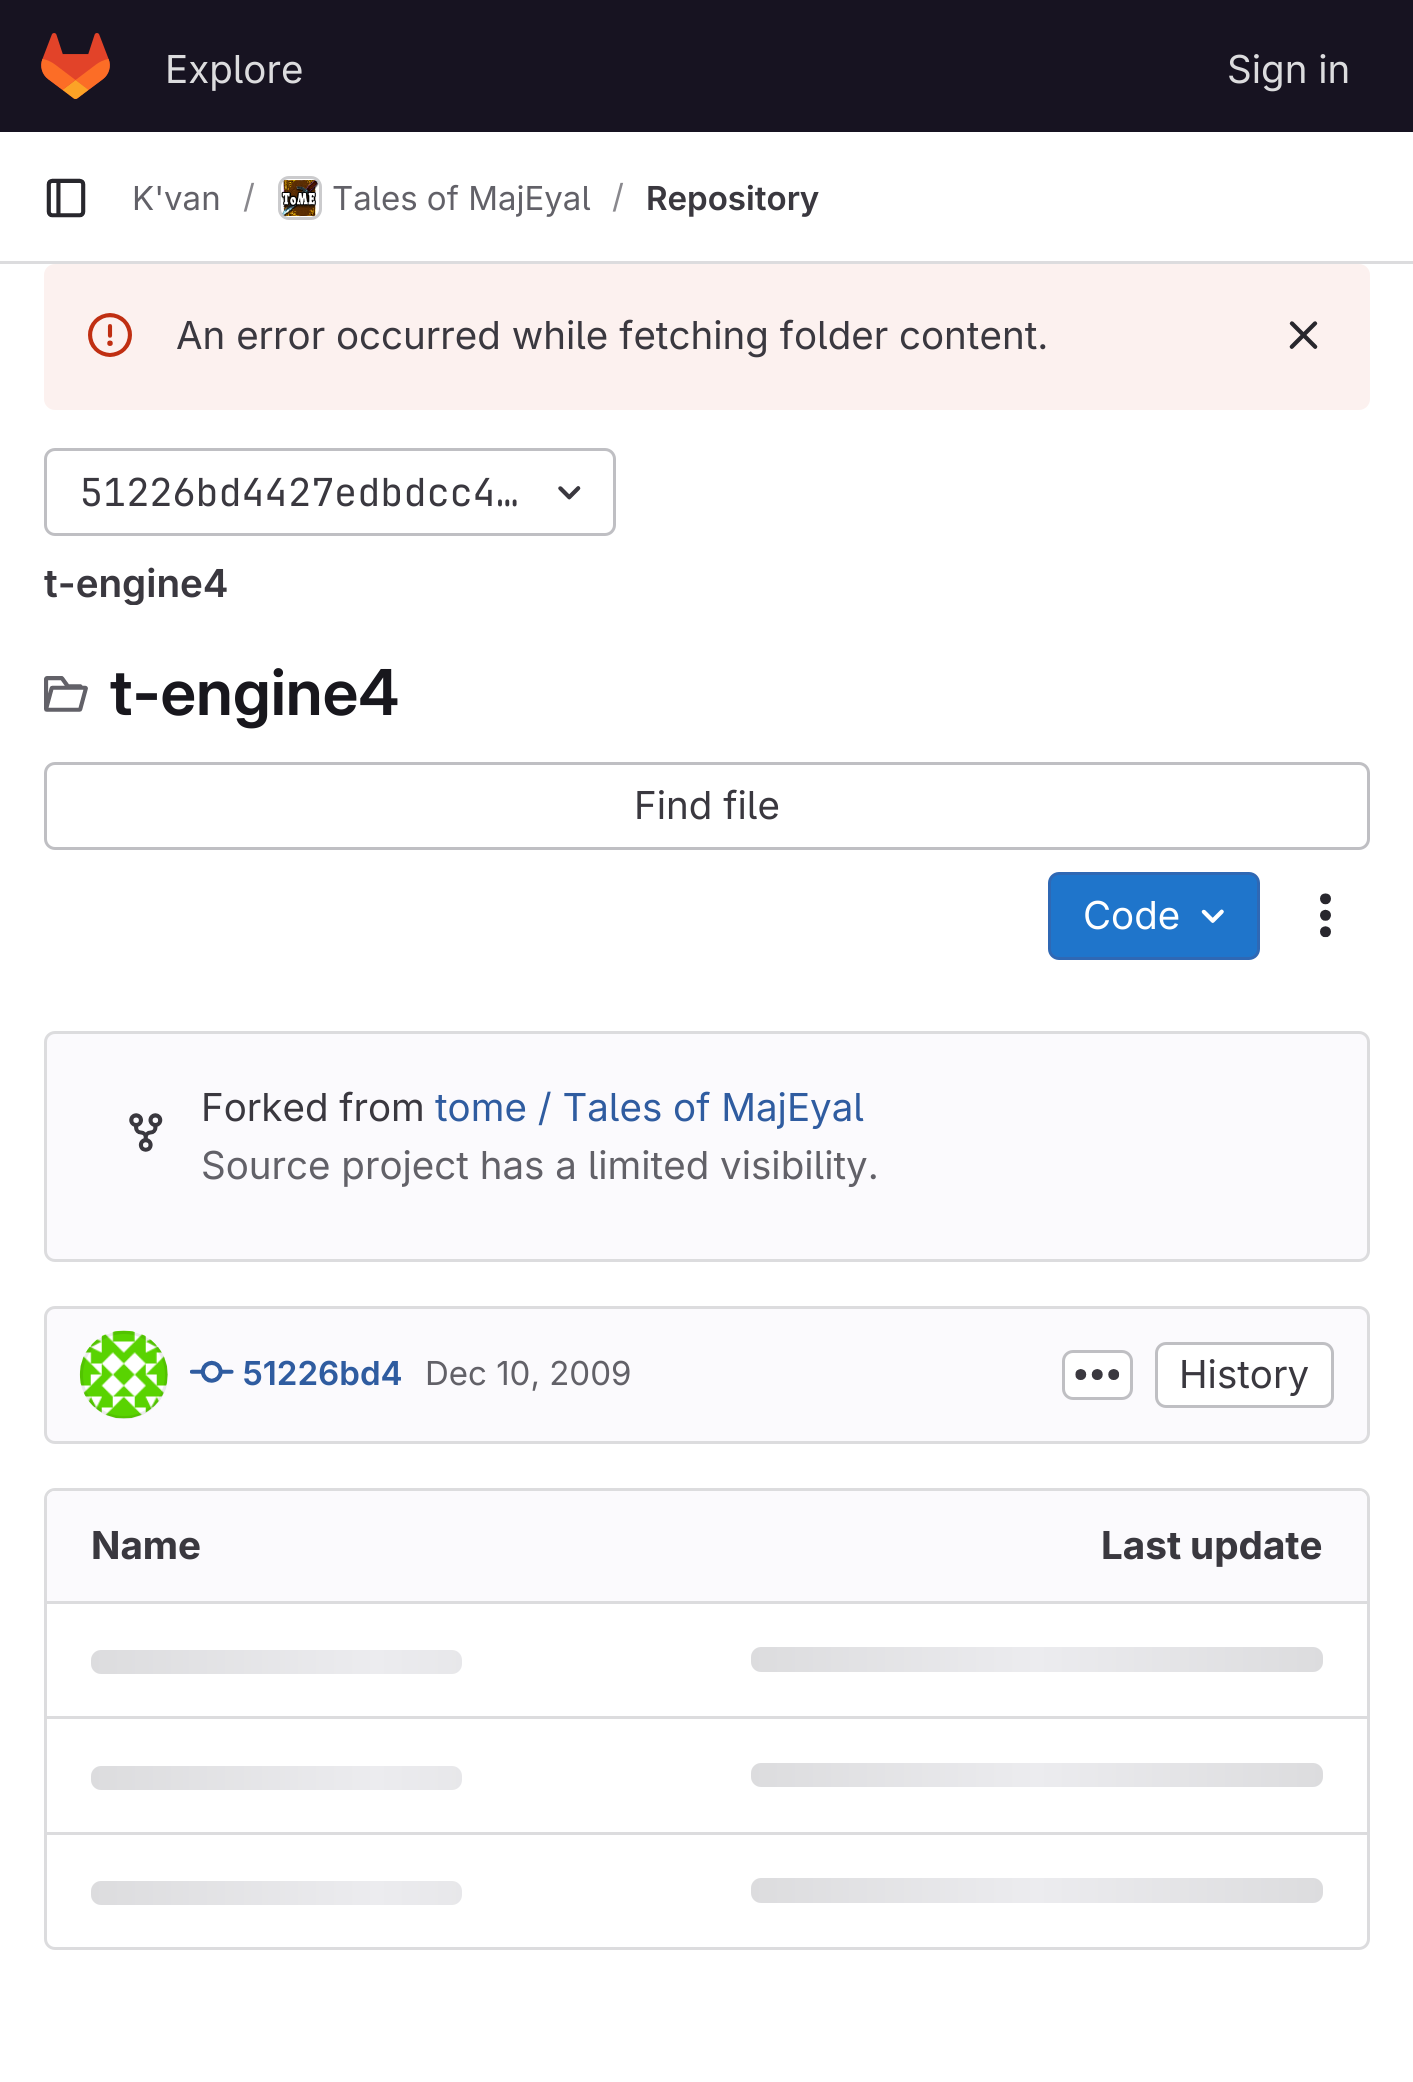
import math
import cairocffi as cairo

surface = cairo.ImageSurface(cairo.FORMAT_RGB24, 1413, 2082)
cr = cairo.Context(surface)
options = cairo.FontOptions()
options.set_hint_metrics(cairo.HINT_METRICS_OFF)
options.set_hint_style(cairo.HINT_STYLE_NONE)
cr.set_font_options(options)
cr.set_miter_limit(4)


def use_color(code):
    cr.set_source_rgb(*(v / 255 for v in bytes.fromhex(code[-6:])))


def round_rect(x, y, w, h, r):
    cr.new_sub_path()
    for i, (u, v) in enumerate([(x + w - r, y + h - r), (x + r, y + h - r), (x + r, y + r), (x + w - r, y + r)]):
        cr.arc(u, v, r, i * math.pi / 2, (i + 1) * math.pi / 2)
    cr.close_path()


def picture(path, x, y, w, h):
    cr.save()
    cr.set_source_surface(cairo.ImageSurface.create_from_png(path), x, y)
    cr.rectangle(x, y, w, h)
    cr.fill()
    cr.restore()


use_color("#ffffff")
cr.paint()
use_color("#171321")
cr.rectangle(0, 0, 1413, 132)
cr.fill()
picture("img1.png", 41, 33, 69, 66)
cr.select_font_face("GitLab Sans")
cr.set_font_size(38.5)
use_color("#dcdcde")
cr.move_to(165, 83)
cr.show_text("Explore")
cr.move_to(1227, 83)
cr.show_text("Sign in")
cr.rectangle(0, 261, 1413, 3)
cr.fill()
picture("img2.png", 46, 178, 40, 40)
cr.set_font_size(33)
use_color("#626168")
cr.move_to(132, 210)
cr.show_text("K'van")
use_color("#89888d")
cr.move_to(243, 208)
cr.show_text("/")
round_rect(279.5, 177.5, 41, 41, 9.5)
use_color("#dcdcde")
cr.set_line_width(3)
cr.stroke()
picture("img3.png", 281, 180, 38, 37)
round_rect(279.5, 177.5, 41, 41, 9.5)
cr.set_source_rgba(0.02, 0.02, 0.024, 0.08)
cr.stroke()
use_color("#626168")
cr.move_to(332, 210)
cr.show_text("Tales of MajEyal")
use_color("#89888d")
cr.move_to(612, 208)
cr.show_text("/")
cr.select_font_face("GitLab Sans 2 SemiBold")
use_color("#3a383f")
cr.move_to(646, 210)
cr.show_text("Repository")
use_color("#fcf1ef")
round_rect(44, 264, 1326, 146, 11)
cr.fill()
picture("img4.png", 88, 313, 44, 44)
cr.select_font_face("GitLab Sans")
cr.set_font_size(38.5)
use_color("#3a383f")
cr.move_to(176, 349)
cr.show_text("An error occurred while fetching folder content.")
picture("img5.png", 1289, 321, 29, 28)
round_rect(45.5, 449.5, 569, 85, 9.5)
use_color("#bfbfc3")
cr.stroke()
cr.select_font_face("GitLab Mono")
use_color("#3a383f")
cr.move_to(80, 506)
cr.show_text("51226bd4427edbdcc4…")
picture("img6.png", 558, 486, 23, 14)
cr.save()
round_rect(44, 558, 184, 47, 11)
cr.clip()
cr.select_font_face("GitLab Sans 2 SemiBold")
cr.move_to(44, 597)
cr.show_text("t-engine4")
cr.restore()
picture("img7.png", 44, 676, 44, 36)
cr.select_font_face("GitLab Sans SemiBold")
cr.set_font_size(63.25)
use_color("#18171d")
cr.move_to(110, 715)
cr.show_text("t-engine4")
round_rect(45.5, 763.5, 1323, 85, 9.5)
use_color("#bfbfc3")
cr.stroke()
cr.select_font_face("GitLab Sans")
cr.set_font_size(38.5)
use_color("#3a383f")
cr.move_to(634, 819)
cr.show_text("Find file")
use_color("#1f75cb")
round_rect(1049.5, 873.5, 209, 85, 9.5)
cr.fill_preserve()
use_color("#2f68b4")
cr.stroke()
use_color("#ffffff")
cr.move_to(1083, 929)
cr.show_text("Code")
picture("img8.png", 1201, 909, 23, 14)
picture("img9.png", 1320, 893, 11, 45)
use_color("#fbfafd")
round_rect(45.5, 1032.5, 1323, 228, 9.5)
cr.fill_preserve()
use_color("#dcdcde")
cr.stroke()
picture("img10.png", 129, 1113, 34, 39)
use_color("#3a383f")
cr.move_to(201, 1121)
cr.show_text("Forked from")
use_color("#2f5ca0")
cr.move_to(435, 1121)
cr.show_text("tome / Tales of MajEyal")
use_color("#626168")
cr.move_to(201, 1179)
cr.show_text("Source project has a limited visibility.")
use_color("#fbfafd")
round_rect(45.5, 1307.5, 1323, 135, 9.5)
cr.fill_preserve()
use_color("#dcdcde")
cr.stroke()
picture("img11.png", 79, 1330, 89, 89)
cr.arc(124, 1375, 42.5, 0, 2 * math.pi)
cr.set_source_rgba(0.02, 0.02, 0.024, 0.08)
cr.stroke()
picture("img12.png", 190, 1360, 44, 23)
cr.select_font_face("GitLab Sans 2 SemiBold")
cr.set_font_size(33)
use_color("#2f5ca0")
cr.move_to(242, 1385)
cr.show_text("51226bd4")
cr.select_font_face("GitLab Sans")
use_color("#626168")
cr.move_to(425, 1385)
cr.show_text("Dec 10, 2009")
use_color("#ffffff")
round_rect(1063.5, 1351.5, 68, 47, 9.5)
cr.fill_preserve()
use_color("#bfbfc3")
cr.stroke()
picture("img13.png", 1075, 1369, 45, 11)
use_color("#ffffff")
round_rect(1156.5, 1343.5, 176, 63, 9.5)
cr.fill_preserve()
use_color("#bfbfc3")
cr.stroke()
cr.set_font_size(38.5)
use_color("#3a383f")
cr.move_to(1179, 1388)
cr.show_text("History")
round_rect(45.5, 1489.5, 1323, 459, 9.5)
use_color("#dcdcde")
cr.stroke()
use_color("#fbfafd")
cr.new_path()
cr.move_to(55, 1491)
cr.line_to(707, 1491)
cr.line_to(707, 1601)
cr.line_to(47, 1601)
cr.line_to(47, 1499)
cr.curve_to(47, 1494.5, 50.5, 1491, 55, 1491)
cr.close_path()
cr.fill()
cr.select_font_face("GitLab Sans", cairo.FONT_SLANT_NORMAL, cairo.FONT_WEIGHT_BOLD)
use_color("#3a383f")
cr.move_to(91, 1559)
cr.show_text("Name")
use_color("#fbfafd")
cr.new_path()
cr.move_to(707, 1491)
cr.line_to(1359, 1491)
cr.curve_to(1363.5, 1491, 1367, 1494.5, 1367, 1499)
cr.line_to(1367, 1601)
cr.line_to(707, 1601)
cr.close_path()
cr.fill()
use_color("#3a383f")
cr.move_to(1101, 1559)
cr.show_text("Last update")
use_color("#dcdcde")
cr.rectangle(47, 1716, 1320, 3)
cr.fill()
cr.rectangle(47, 1601, 1320, 3)
cr.fill()
gradient = cairo.LinearGradient(751, 1647, 1323, 1647)
gradient.add_color_stop_rgba(0, 0.863, 0.863, 0.871, 1)
gradient.add_color_stop_rgba(0.5, 0.925, 0.925, 0.937, 1)
gradient.add_color_stop_rgba(1, 0.863, 0.863, 0.871, 1)
cr.set_source(gradient)
round_rect(751, 1647, 572, 25, 10)
cr.fill()
gradient = cairo.LinearGradient(91, 1650, 663, 1650)
gradient.add_color_stop_rgba(0, 0.863, 0.863, 0.871, 1)
gradient.add_color_stop_rgba(0.5, 0.925, 0.925, 0.937, 1)
gradient.add_color_stop_rgba(1, 0.863, 0.863, 0.871, 1)
cr.set_source(gradient)
round_rect(91, 1650, 371, 24, 10)
cr.fill()
use_color("#dcdcde")
cr.rectangle(47, 1832, 1320, 3)
cr.fill()
gradient = cairo.LinearGradient(91, 1766, 663, 1766)
gradient.add_color_stop_rgba(0, 0.863, 0.863, 0.871, 1)
gradient.add_color_stop_rgba(0.5, 0.925, 0.925, 0.937, 1)
gradient.add_color_stop_rgba(1, 0.863, 0.863, 0.871, 1)
cr.set_source(gradient)
round_rect(91, 1766, 371, 24, 10)
cr.fill()
gradient = cairo.LinearGradient(751, 1763, 1323, 1763)
gradient.add_color_stop_rgba(0, 0.863, 0.863, 0.871, 1)
gradient.add_color_stop_rgba(0.5, 0.925, 0.925, 0.937, 1)
gradient.add_color_stop_rgba(1, 0.863, 0.863, 0.871, 1)
cr.set_source(gradient)
round_rect(751, 1763, 572, 24, 10)
cr.fill()
gradient = cairo.LinearGradient(91, 1881, 663, 1881)
gradient.add_color_stop_rgba(0, 0.863, 0.863, 0.871, 1)
gradient.add_color_stop_rgba(0.5, 0.925, 0.925, 0.937, 1)
gradient.add_color_stop_rgba(1, 0.863, 0.863, 0.871, 1)
cr.set_source(gradient)
round_rect(91, 1881, 371, 24, 10)
cr.fill()
gradient = cairo.LinearGradient(751, 1878, 1323, 1878)
gradient.add_color_stop_rgba(0, 0.863, 0.863, 0.871, 1)
gradient.add_color_stop_rgba(0.5, 0.925, 0.925, 0.937, 1)
gradient.add_color_stop_rgba(1, 0.863, 0.863, 0.871, 1)
cr.set_source(gradient)
round_rect(751, 1878, 572, 25, 10)
cr.fill()
surface.write_to_png("result.png")
